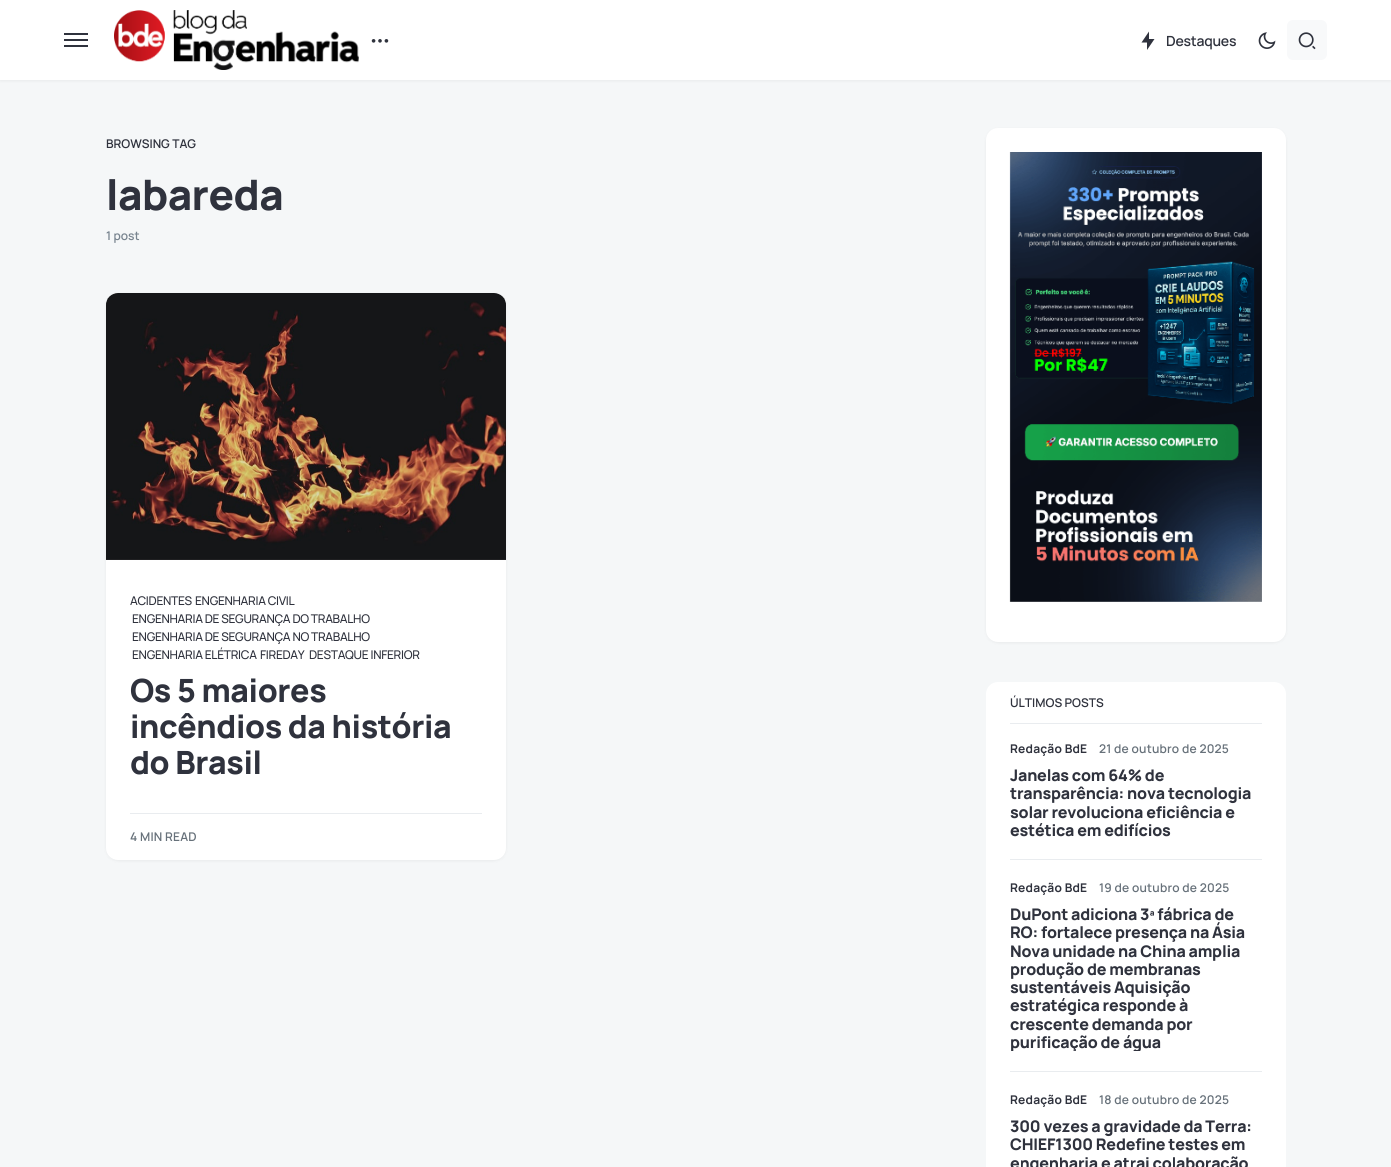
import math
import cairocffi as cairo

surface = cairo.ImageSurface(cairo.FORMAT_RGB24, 1391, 1167)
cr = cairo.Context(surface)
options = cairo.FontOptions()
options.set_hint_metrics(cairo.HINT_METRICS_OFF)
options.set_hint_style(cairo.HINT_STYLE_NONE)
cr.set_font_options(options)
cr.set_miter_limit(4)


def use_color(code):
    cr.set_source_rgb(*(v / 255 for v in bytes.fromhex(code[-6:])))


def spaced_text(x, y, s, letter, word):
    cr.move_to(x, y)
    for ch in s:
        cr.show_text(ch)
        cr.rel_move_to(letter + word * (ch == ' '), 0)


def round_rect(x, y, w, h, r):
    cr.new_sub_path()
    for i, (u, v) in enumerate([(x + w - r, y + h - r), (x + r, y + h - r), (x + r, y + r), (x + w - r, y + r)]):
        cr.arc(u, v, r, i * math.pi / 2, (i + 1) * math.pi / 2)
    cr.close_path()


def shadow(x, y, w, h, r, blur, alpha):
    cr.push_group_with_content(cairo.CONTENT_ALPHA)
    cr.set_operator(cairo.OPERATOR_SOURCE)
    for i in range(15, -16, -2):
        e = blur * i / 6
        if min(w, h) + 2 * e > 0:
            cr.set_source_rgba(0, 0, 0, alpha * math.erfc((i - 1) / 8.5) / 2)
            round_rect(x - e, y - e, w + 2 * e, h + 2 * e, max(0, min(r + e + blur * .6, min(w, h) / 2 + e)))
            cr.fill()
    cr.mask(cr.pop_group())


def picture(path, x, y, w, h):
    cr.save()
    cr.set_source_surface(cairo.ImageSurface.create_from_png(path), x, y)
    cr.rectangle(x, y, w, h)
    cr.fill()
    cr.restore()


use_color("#f5f7f8")
cr.paint()
use_color("#000000")
shadow(0, 1, 1391, 80, 0, 1.5, 0.05)
use_color("#ffffff")
cr.rectangle(0, 0, 1391, 80)
cr.fill()
use_color("#2f323d")
cr.rectangle(64, 33, 24, 2)
cr.fill()
cr.rectangle(64, 39, 24, 2)
cr.fill()
cr.rectangle(64, 45, 24, 2)
cr.fill()
picture("img1.png", 114, 10, 245, 60)
picture("img2.png", 371, 39, 18, 4)
cr.new_path()
cr.move_to(1149, 39)
cr.line_to(1154.5, 39)
cr.line_to(1147, 50)
cr.line_to(1147, 42.5)
cr.line_to(1141.5, 42.5)
cr.line_to(1149, 31.5)
cr.close_path()
cr.fill()
cr.select_font_face("Manrope SemiBold")
cr.set_font_size(14)
spaced_text(1166, 46, "Destaques", -0.25, 0)
picture("img3.png", 1258, 32, 18, 17)
use_color("#f8f9fa")
round_rect(1287, 20, 40, 40, 6)
cr.fill()
picture("img4.png", 1298, 32, 18, 18)
cr.set_font_size(12)
use_color("#2f323d")
cr.move_to(106, 148)
cr.show_text("BROWSING TAG")
cr.select_font_face("Manrope ExtraBold")
cr.set_font_size(42)
spaced_text(106, 210, "labareda", -0.5, 0)
cr.select_font_face("Manrope SemiBold")
cr.set_font_size(12)
use_color("#78848f")
cr.move_to(106, 240)
cr.show_text("1 post")
use_color("#000000")
shadow(106, 294, 400, 567, 12, 1.5, 0.05)
use_color("#ffffff")
round_rect(106, 293, 400, 567, 12)
cr.fill()
picture("img5.png", 106, 293, 400, 267)
cr.select_font_face("Manrope Medium")
use_color("#2f323d")
spaced_text(130, 605, "ACIDENTES", -0.3, 0)
spaced_text(195, 605, "ENGENHARIA CIVIL", -0.3, 0)
spaced_text(132, 623, "ENGENHARIA DE SEGURANÇA DO TRABALHO", -0.3, 0)
spaced_text(132, 641, "ENGENHARIA DE SEGURANÇA NO TRABALHO", -0.3, 0)
spaced_text(132, 659, "ENGENHARIA ELÉTRICA", -0.3, 0)
spaced_text(260, 659, "FIREDAY", -0.3, 0)
spaced_text(309, 659, "DESTAQUE INFERIOR", -0.3, 0)
cr.select_font_face("Manrope ExtraBold")
cr.set_font_size(32)
spaced_text(130, 702, "Os 5 maiores", -0.4, 0)
spaced_text(130, 738, "incêndios da história", -0.4, 0)
spaced_text(130, 774, "do Brasil", -0.4, 0)
use_color("#e9ecef")
cr.rectangle(130, 813, 352, 1)
cr.fill()
cr.select_font_face("Manrope SemiBold")
cr.set_font_size(12)
use_color("#67717a")
spaced_text(130, 841, "4 MIN READ", 0.2, 0)
use_color("#000000")
shadow(986, 129, 300, 514, 12, 1.5, 0.05)
use_color("#ffffff")
round_rect(986, 128, 300, 514, 12)
cr.fill()
picture("img6.png", 1009, 152, 253, 450)
round_rect(986, 682, 300, 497, 12)
cr.fill()
use_color("#e9ecef")
cr.rectangle(1010, 723, 252, 1)
cr.fill()
use_color("#2f323d")
cr.move_to(1010, 707)
cr.show_text("ÚLTIMOS POSTS")
cr.select_font_face("Manrope", cairo.FONT_SLANT_NORMAL, cairo.FONT_WEIGHT_BOLD)
spaced_text(1010, 753, "Redação BdE", 0.2, 0)
cr.select_font_face("Manrope SemiBold")
use_color("#67717a")
spaced_text(1099, 753, "21 de outubro de 2025", 0.2, 0)
cr.select_font_face("Manrope ExtraBold")
cr.set_font_size(16)
use_color("#2f323d")
spaced_text(1010, 781, "Janelas com 64% de", -0.2, 0)
spaced_text(1010, 799, "transparência: nova tecnologia", -0.2, 0)
spaced_text(1010, 818, "solar revoluciona eficiência e", -0.2, 0)
spaced_text(1010, 836, "estética em edifícios", -0.2, 0)
use_color("#e9ecef")
cr.rectangle(1010, 859, 252, 1)
cr.fill()
cr.select_font_face("Manrope", cairo.FONT_SLANT_NORMAL, cairo.FONT_WEIGHT_BOLD)
cr.set_font_size(12)
use_color("#2f323d")
spaced_text(1010, 892, "Redação BdE", 0.2, 0)
cr.select_font_face("Manrope SemiBold")
use_color("#67717a")
spaced_text(1099, 892, "19 de outubro de 2025", 0.2, 0)
cr.select_font_face("Manrope ExtraBold")
cr.set_font_size(16)
use_color("#2f323d")
spaced_text(1010, 920, "DuPont adiciona 3ª fábrica de", -0.2, 0)
spaced_text(1010, 938, "RO: fortalece presença na Ásia", -0.2, 0)
spaced_text(1010, 957, "Nova unidade na China amplia", -0.2, 0)
spaced_text(1010, 975, "produção de membranas", -0.2, 0)
spaced_text(1010, 993, "sustentáveis Aquisição", -0.2, 0)
spaced_text(1010, 1011, "estratégica responde à", -0.2, 0)
spaced_text(1010, 1030, "crescente demanda por", -0.2, 0)
cr.save()
cr.rectangle(1010, 879, 252, 172)
cr.clip()
spaced_text(1010, 1048, "purificação de água", -0.2, 0)
cr.restore()
use_color("#e9ecef")
cr.rectangle(1010, 1071, 252, 1)
cr.fill()
cr.select_font_face("Manrope", cairo.FONT_SLANT_NORMAL, cairo.FONT_WEIGHT_BOLD)
cr.set_font_size(12)
use_color("#2f323d")
spaced_text(1010, 1104, "Redação BdE", 0.2, 0)
cr.select_font_face("Manrope SemiBold")
use_color("#67717a")
spaced_text(1099, 1104, "18 de outubro de 2025", 0.2, 0)
cr.select_font_face("Manrope ExtraBold")
cr.set_font_size(16)
use_color("#2f323d")
spaced_text(1010, 1132, "300 vezes a gravidade da Terra:", -0.2, 0)
spaced_text(1010, 1150, "CHIEF1300 Redefine testes em", -0.2, 0)
spaced_text(1010, 1169, "engenharia e atrai colaboração", -0.2, 0)
surface.write_to_png("result.png")
